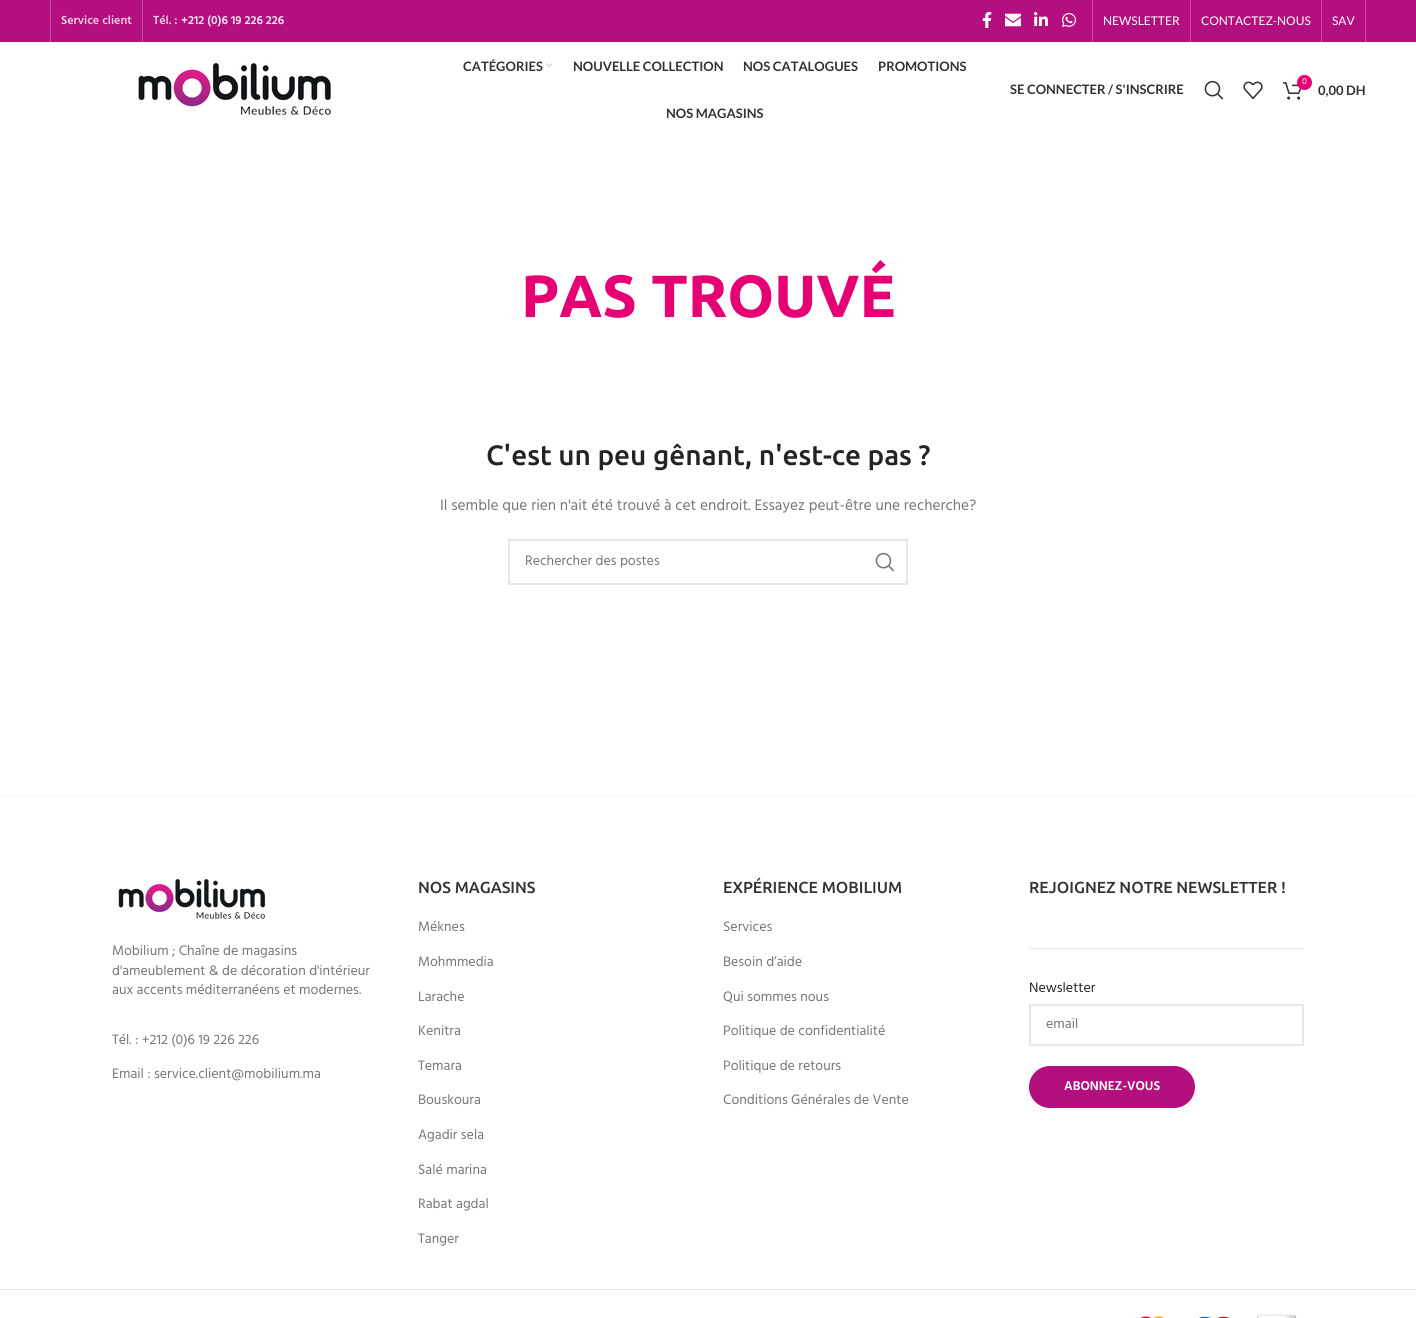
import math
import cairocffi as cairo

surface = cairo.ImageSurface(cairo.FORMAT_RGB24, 1416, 1318)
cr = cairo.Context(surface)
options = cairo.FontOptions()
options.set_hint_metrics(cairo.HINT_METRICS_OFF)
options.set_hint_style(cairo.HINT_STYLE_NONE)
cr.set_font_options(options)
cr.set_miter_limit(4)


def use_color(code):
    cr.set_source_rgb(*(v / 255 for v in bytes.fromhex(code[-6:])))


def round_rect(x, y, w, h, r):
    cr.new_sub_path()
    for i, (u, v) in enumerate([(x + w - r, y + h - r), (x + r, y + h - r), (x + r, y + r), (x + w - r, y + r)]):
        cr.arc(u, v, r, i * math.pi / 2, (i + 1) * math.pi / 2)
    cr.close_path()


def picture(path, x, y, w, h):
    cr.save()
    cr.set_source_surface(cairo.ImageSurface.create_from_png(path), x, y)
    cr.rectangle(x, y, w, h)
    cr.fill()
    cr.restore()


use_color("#ffffff")
cr.paint()
use_color("#b30f7f")
cr.rectangle(0, 0, 1416, 42)
cr.fill()
use_color("#c64b9f")
cr.rectangle(50, 0, 1, 42)
cr.fill()
cr.select_font_face("Hind SemiBold")
cr.set_font_size(12)
use_color("#f0cfe5")
cr.move_to(61, 24)
cr.show_text("Service client")
use_color("#c64b9f")
cr.rectangle(142, 0, 1, 42)
cr.fill()
use_color("#f0cfe5")
cr.move_to(153, 24)
cr.show_text("Tél. :")
use_color("#f7e7f2")
cr.move_to(181, 24)
cr.show_text("+212 (0)6 19 226 226")
picture("img1.png", 982, 12, 10, 16)
picture("img2.png", 1005, 13, 16, 14)
picture("img3.png", 1034, 12, 14, 14)
picture("img4.png", 1062, 13, 14, 14)
use_color("#c64b9f")
cr.rectangle(1092, 0, 1, 42)
cr.fill()
cr.select_font_face("Lato")
use_color("#ffffff")
cr.move_to(1103, 25)
cr.show_text("NEWSLETTER")
use_color("#c64b9f")
cr.rectangle(1190, 0, 1, 42)
cr.fill()
use_color("#ffffff")
cr.move_to(1201, 25)
cr.show_text("CONTACTEZ-NOUS")
use_color("#c64b9f")
cr.rectangle(1321, 0, 1, 42)
cr.fill()
use_color("#ffffff")
cr.move_to(1332, 25)
cr.show_text("SAV")
use_color("#c64b9f")
cr.rectangle(1365, 0, 1, 42)
cr.fill()
picture("img5.png", 138, 63, 193, 52)
cr.select_font_face("Lato", cairo.FONT_SLANT_NORMAL, cairo.FONT_WEIGHT_BOLD)
cr.set_font_size(13)
use_color("#333333")
cr.move_to(463, 71)
cr.show_text("CATÉGORIES")
picture("img6.png", 546, 63, 6, 4)
cr.move_to(573, 71)
cr.show_text("NOUVELLE COLLECTION")
cr.move_to(743, 71)
cr.show_text("NOS CATALOGUES")
cr.move_to(878, 71)
cr.show_text("PROMOTIONS")
cr.move_to(666, 118)
cr.show_text("NOS MAGASINS")
cr.move_to(1010, 94)
cr.show_text("SE CONNECTER / S'INSCRIRE")
picture("img7.png", 1204, 80, 20, 20)
picture("img8.png", 1243, 81, 20, 18)
picture("img9.png", 1283, 82, 19, 18)
use_color("#e50073")
cr.arc(1304.5, 82.5, 7.5, 0, 2 * math.pi)
cr.fill()
cr.select_font_face("Hind")
cr.set_font_size(9)
use_color("#ffffff")
cr.move_to(1302, 84)
cr.show_text("0")
cr.select_font_face("Lato", cairo.FONT_SLANT_NORMAL, cairo.FONT_WEIGHT_BOLD)
cr.set_font_size(13)
use_color("#333333")
cr.move_to(1318, 95)
cr.show_text("0,00 DH")
cr.select_font_face("Ubuntu", cairo.FONT_SLANT_NORMAL, cairo.FONT_WEIGHT_BOLD)
cr.set_font_size(59.5)
use_color("#e50073")
cr.move_to(521, 317)
cr.show_text("PAS TROUVÉ")
cr.select_font_face("Ubuntu Medium")
cr.set_font_size(28)
use_color("#242424")
cr.move_to(486, 465)
cr.show_text("C'est un peu gênant, n'est-ce pas ?")
cr.select_font_face("Hind")
cr.set_font_size(15.4)
use_color("#767676")
cr.move_to(440, 510)
cr.show_text("Il semble que rien n'ait été trouvé à cet endroit. Essayez peut-être une recherche?")
cr.rectangle(509, 540, 398, 44)
use_color("#e6e6e6")
cr.stroke()
cr.set_font_size(14)
use_color("#767676")
cr.move_to(525, 565)
cr.show_text("Rechercher des postes")
picture("img10.png", 875, 552, 20, 20)
use_color("#f9f9f9")
cr.rectangle(0, 796, 1416, 1)
cr.fill()
picture("img11.png", 118, 878, 148, 41)
use_color("#767676")
cr.move_to(112, 955)
cr.show_text("Mobilium ; Chaîne de magasins")
cr.move_to(112, 975)
cr.show_text("d'ameublement & de décoration d'intérieur")
cr.move_to(112, 994)
cr.show_text("aux accents méditerranéens et modernes.")
cr.move_to(112, 1044)
cr.show_text("Tél. : +212 (0)6 19 226 226")
cr.move_to(112, 1078)
cr.show_text("Email : service.client@mobilium.ma")
cr.select_font_face("Ubuntu Medium")
cr.set_font_size(16)
use_color("#333333")
cr.move_to(418, 893)
cr.show_text("NOS MAGASINS")
cr.select_font_face("Hind")
cr.set_font_size(14)
use_color("#767676")
cr.move_to(418, 931)
cr.show_text("Méknes")
cr.move_to(418, 966)
cr.show_text("Mohmmedia")
cr.move_to(418, 1001)
cr.show_text("Larache")
cr.move_to(418, 1035)
cr.show_text("Kenitra")
cr.move_to(418, 1070)
cr.show_text("Temara")
cr.move_to(418, 1104)
cr.show_text("Bouskoura")
cr.move_to(418, 1139)
cr.show_text("Agadir sela")
cr.move_to(418, 1174)
cr.show_text("Salé marina")
cr.move_to(418, 1208)
cr.show_text("Rabat agdal")
cr.move_to(418, 1243)
cr.show_text("Tanger")
cr.select_font_face("Ubuntu Medium")
cr.set_font_size(16)
use_color("#333333")
cr.move_to(723, 893)
cr.show_text("EXPÉRIENCE MOBILIUM")
cr.select_font_face("Hind")
cr.set_font_size(14)
use_color("#767676")
cr.move_to(723, 931)
cr.show_text("Services")
cr.move_to(723, 966)
cr.show_text("Besoin d’aide")
cr.move_to(723, 1001)
cr.show_text("Qui sommes nous")
cr.move_to(723, 1035)
cr.show_text("Politique de confidentialité")
cr.move_to(723, 1070)
cr.show_text("Politique de retours")
cr.move_to(723, 1104)
cr.show_text("Conditions Générales de Vente")
use_color("#e4e4e4")
cr.rectangle(1029, 948, 275, 1)
cr.fill()
cr.select_font_face("Ubuntu Medium")
cr.set_font_size(16)
use_color("#333333")
cr.move_to(1029, 893)
cr.show_text("REJOIGNEZ NOTRE NEWSLETTER !")
cr.select_font_face("Hind")
cr.set_font_size(14)
use_color("#242424")
cr.move_to(1029, 992)
cr.show_text("Newsletter")
cr.rectangle(1030, 1005, 273, 40)
use_color("#e6e6e6")
cr.stroke()
use_color("#767676")
cr.move_to(1046, 1028)
cr.show_text("email")
use_color("#b30f7f")
round_rect(1029, 1066, 166, 42, 21)
cr.fill()
cr.select_font_face("Hind SemiBold")
cr.set_font_size(13)
use_color("#ffffff")
cr.move_to(1064, 1090)
cr.show_text("ABONNEZ-VOUS")
use_color("#e4e4e4")
cr.rectangle(0, 1289, 1416, 1)
cr.fill()
picture("img12.png", 1140, 1314, 157, 4)
surface.write_to_png("result.png")
